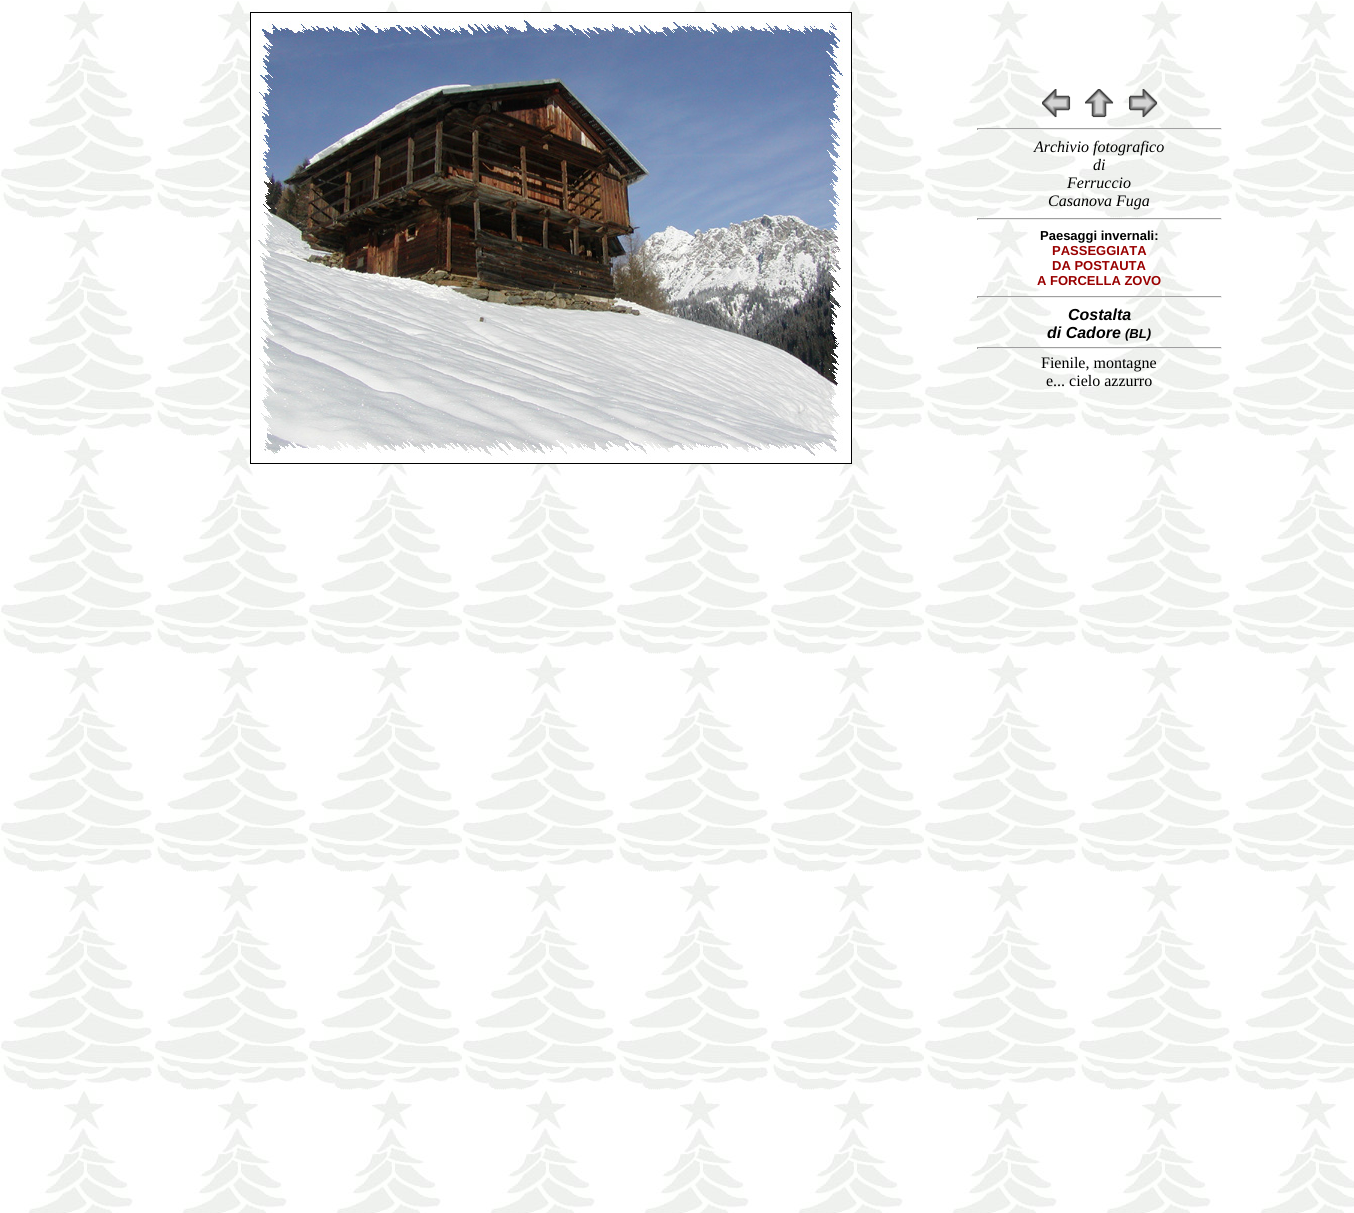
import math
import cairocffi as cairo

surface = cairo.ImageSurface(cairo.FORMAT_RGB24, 1354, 1213)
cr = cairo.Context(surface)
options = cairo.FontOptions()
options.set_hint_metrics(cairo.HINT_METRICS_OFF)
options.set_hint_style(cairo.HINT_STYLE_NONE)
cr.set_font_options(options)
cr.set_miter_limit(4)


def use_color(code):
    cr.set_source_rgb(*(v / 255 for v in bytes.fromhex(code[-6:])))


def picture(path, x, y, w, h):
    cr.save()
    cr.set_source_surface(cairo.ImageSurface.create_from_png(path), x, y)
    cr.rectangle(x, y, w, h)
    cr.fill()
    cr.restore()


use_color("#ffffff")
cr.paint()
picture("img1.png", 0, 1, 1354, 1212)
cr.rectangle(250.5, 12.5, 601, 451)
use_color("#000000")
cr.set_line_width(1)
cr.stroke()
picture("img2.png", 251, 13, 600, 450)
picture("img3.png", 1042, 89, 29, 29)
picture("img4.png", 1085, 89, 29, 29)
picture("img5.png", 1129, 89, 29, 29)
use_color("#9f9f9f")
cr.rectangle(977, 128, 245, 1)
cr.fill()
use_color("#eeeeee")
cr.rectangle(1221, 128, 1, 2)
cr.fill()
cr.rectangle(977, 129, 245, 1)
cr.fill()
use_color("#9f9f9f")
cr.rectangle(977, 128, 1, 2)
cr.fill()
cr.select_font_face("Liberation Serif", cairo.FONT_SLANT_ITALIC)
cr.set_font_size(16)
use_color("#000000")
cr.move_to(1034, 152)
cr.show_text("Archivio fotografico")
cr.move_to(1093, 170)
cr.show_text("di")
cr.move_to(1067, 188)
cr.show_text("Ferruccio")
cr.move_to(1048, 206)
cr.show_text("Casanova Fuga")
use_color("#9f9f9f")
cr.rectangle(977, 218, 245, 1)
cr.fill()
use_color("#eeeeee")
cr.rectangle(1221, 218, 1, 2)
cr.fill()
cr.rectangle(977, 219, 245, 1)
cr.fill()
use_color("#9f9f9f")
cr.rectangle(977, 218, 1, 2)
cr.fill()
cr.select_font_face("Liberation Sans", cairo.FONT_SLANT_NORMAL, cairo.FONT_WEIGHT_BOLD)
cr.set_font_size(13)
use_color("#000000")
cr.move_to(1040, 240)
cr.show_text("Paesaggi invernali:")
use_color("#990000")
cr.move_to(1052, 255)
cr.show_text("PASSEGGIATA")
cr.move_to(1052, 270)
cr.show_text("DA POSTAUTA")
cr.move_to(1037, 285)
cr.show_text("A FORCELLA ZOVO")
use_color("#9f9f9f")
cr.rectangle(977, 296, 245, 1)
cr.fill()
use_color("#eeeeee")
cr.rectangle(1221, 296, 1, 2)
cr.fill()
cr.rectangle(977, 297, 245, 1)
cr.fill()
use_color("#9f9f9f")
cr.rectangle(977, 296, 1, 2)
cr.fill()
cr.select_font_face("Liberation Sans", cairo.FONT_SLANT_ITALIC, cairo.FONT_WEIGHT_BOLD)
cr.set_font_size(16)
use_color("#000000")
cr.move_to(1068, 320)
cr.show_text("Costalta")
cr.move_to(1047, 338)
cr.show_text("di Cadore")
cr.set_font_size(13)
cr.move_to(1125, 338)
cr.show_text("(BL)")
use_color("#9f9f9f")
cr.rectangle(977, 347, 245, 1)
cr.fill()
use_color("#eeeeee")
cr.rectangle(1221, 347, 1, 2)
cr.fill()
cr.rectangle(977, 348, 245, 1)
cr.fill()
use_color("#9f9f9f")
cr.rectangle(977, 347, 1, 2)
cr.fill()
cr.select_font_face("Liberation Serif")
cr.set_font_size(16)
use_color("#000000")
cr.move_to(1041, 368)
cr.show_text("Fienile, montagne")
cr.move_to(1046, 386)
cr.show_text("e... cielo azzurro")
surface.write_to_png("result.png")
